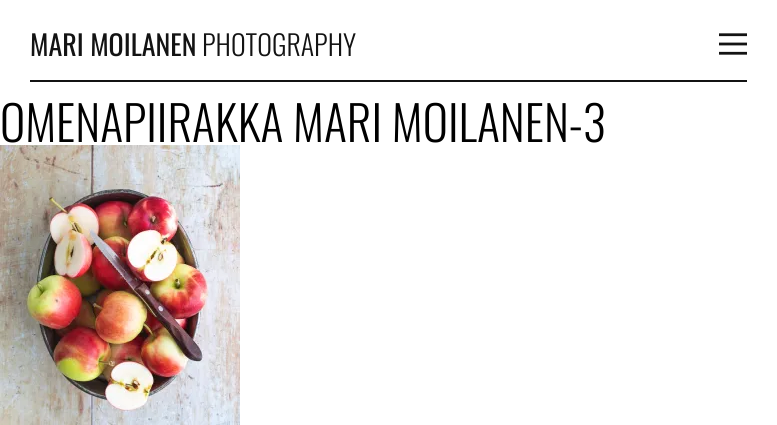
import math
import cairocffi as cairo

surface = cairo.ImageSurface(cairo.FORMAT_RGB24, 777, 425)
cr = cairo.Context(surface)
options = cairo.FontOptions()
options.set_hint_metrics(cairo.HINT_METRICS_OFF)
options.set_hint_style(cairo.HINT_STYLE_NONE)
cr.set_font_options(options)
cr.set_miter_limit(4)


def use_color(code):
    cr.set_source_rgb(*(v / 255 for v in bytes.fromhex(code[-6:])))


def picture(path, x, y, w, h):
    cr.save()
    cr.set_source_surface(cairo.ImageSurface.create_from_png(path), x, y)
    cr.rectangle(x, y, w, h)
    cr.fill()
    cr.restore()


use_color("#ffffff")
cr.paint()
use_color("#131313")
cr.rectangle(30, 80, 717, 2)
cr.fill()
cr.select_font_face("Oswald")
cr.set_font_size(28)
cr.move_to(30, 56)
cr.show_text("MARI MOILANEN")
cr.select_font_face("Oswald Light")
cr.move_to(202, 56)
cr.show_text("PHOTOGRAPHY")
picture("img1.png", 719, 33, 28, 22)
cr.set_font_size(48)
use_color("#000000")
cr.move_to(0, 142)
cr.show_text("OMENAPIIRAKKA MARI MOILANEN-3")
picture("img2.png", 0, 145, 240, 280)
surface.write_to_png("result.png")
